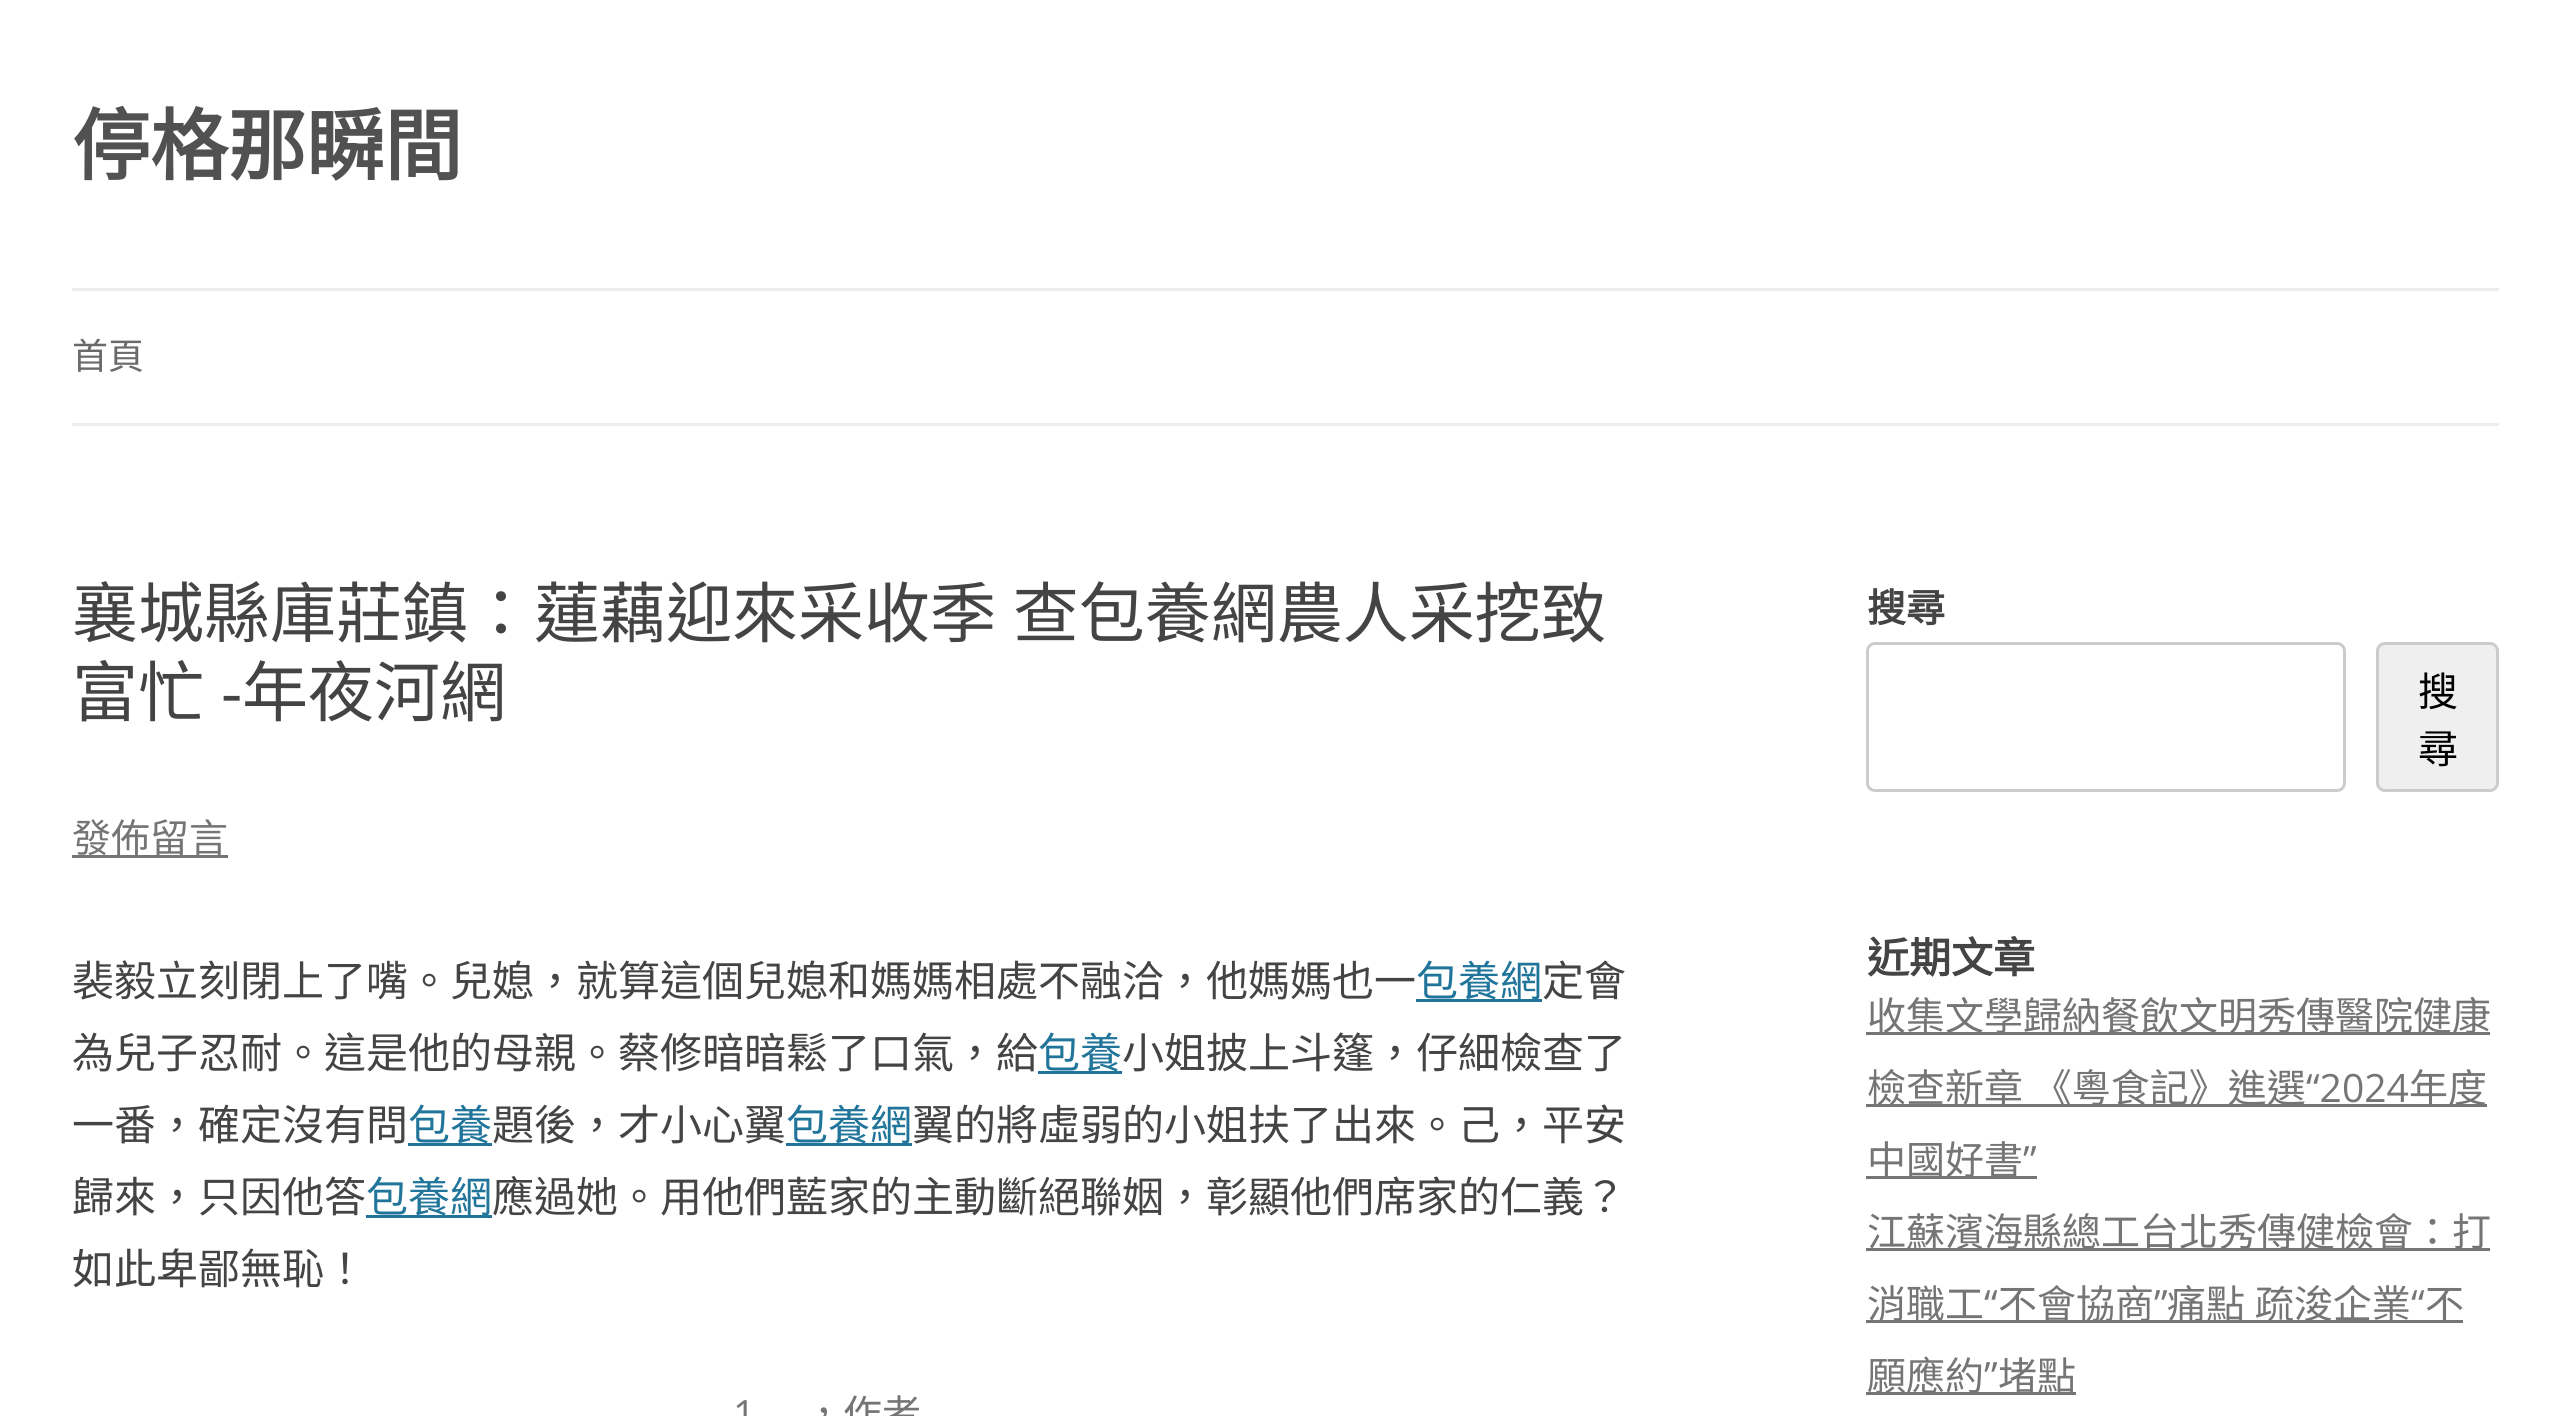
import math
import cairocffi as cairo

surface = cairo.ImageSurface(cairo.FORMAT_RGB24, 2570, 1416)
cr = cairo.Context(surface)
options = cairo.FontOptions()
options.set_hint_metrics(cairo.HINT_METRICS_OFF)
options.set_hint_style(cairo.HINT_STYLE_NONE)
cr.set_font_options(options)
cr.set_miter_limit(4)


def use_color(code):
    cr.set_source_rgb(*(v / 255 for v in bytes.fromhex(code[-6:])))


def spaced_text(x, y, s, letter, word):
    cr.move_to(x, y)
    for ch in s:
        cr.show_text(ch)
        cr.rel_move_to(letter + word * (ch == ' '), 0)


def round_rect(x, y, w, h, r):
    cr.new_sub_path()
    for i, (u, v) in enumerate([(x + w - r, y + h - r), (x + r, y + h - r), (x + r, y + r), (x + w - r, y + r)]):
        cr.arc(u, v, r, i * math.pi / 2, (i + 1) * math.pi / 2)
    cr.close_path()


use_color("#ffffff")
cr.paint()
cr.select_font_face("Noto Sans CJK TC", cairo.FONT_SLANT_NORMAL, cairo.FONT_WEIGHT_BOLD)
cr.set_font_size(78)
use_color("#515151")
cr.move_to(72, 174)
cr.show_text("停格那瞬間")
use_color("#ededed")
cr.rectangle(72, 288, 2427, 3)
cr.fill()
cr.rectangle(72, 423, 2427, 3)
cr.fill()
cr.select_font_face("Noto Sans CJK TC")
cr.set_font_size(36)
use_color("#6a6a6a")
cr.move_to(72, 369)
cr.show_text("首頁")
cr.set_font_size(66)
use_color("#444444")
spaced_text(72, 637, "襄城縣庫莊鎮：蓮藕迎來采收季 查包養網農人采挖致", 0, 2)
cr.move_to(72, 716)
cr.show_text("富忙")
cr.select_font_face("Open Sans")
cr.move_to(221, 716)
cr.show_text("-")
cr.select_font_face("Noto Sans CJK TC")
cr.move_to(242, 716)
cr.show_text("年夜河網")
use_color("#757575")
cr.rectangle(72, 855, 156, 3)
cr.fill()
cr.set_font_size(39)
cr.move_to(72, 852)
cr.show_text("發佈留言")
cr.set_font_size(42)
use_color("#444444")
cr.move_to(72, 996)
cr.show_text("裴毅立刻閉上了嘴。兒媳，就算這個兒媳和媽媽相處不融洽，他媽媽也一")
use_color("#21759b")
cr.rectangle(1416, 999, 126, 3)
cr.fill()
cr.move_to(1416, 996)
cr.show_text("包養網")
use_color("#444444")
cr.move_to(1542, 996)
cr.show_text("定會")
cr.move_to(72, 1068)
cr.show_text("為兒子忍耐。這是他的母親。蔡修暗暗鬆了口氣，給")
use_color("#21759b")
cr.rectangle(1038, 1071, 84, 3)
cr.fill()
cr.move_to(1038, 1068)
cr.show_text("包養")
use_color("#444444")
cr.move_to(1122, 1068)
cr.show_text("小姐披上斗篷，仔細檢查了")
cr.move_to(72, 1140)
cr.show_text("一番，確定沒有問")
use_color("#21759b")
cr.rectangle(408, 1143, 84, 3)
cr.fill()
cr.move_to(408, 1140)
cr.show_text("包養")
use_color("#444444")
cr.move_to(492, 1140)
cr.show_text("題後，才小心翼")
use_color("#21759b")
cr.rectangle(786, 1143, 126, 3)
cr.fill()
cr.move_to(786, 1140)
cr.show_text("包養網")
use_color("#444444")
cr.move_to(912, 1140)
cr.show_text("翼的將虛弱的小姐扶了出來。己，平安")
cr.move_to(72, 1212)
cr.show_text("歸來，只因他答")
use_color("#21759b")
cr.rectangle(366, 1215, 126, 3)
cr.fill()
cr.move_to(366, 1212)
cr.show_text("包養網")
use_color("#444444")
cr.move_to(492, 1212)
cr.show_text("應過她。用他們藍家的主動斷絕聯姻，彰顯他們席家的仁義？")
cr.move_to(72, 1284)
cr.show_text("如此卑鄙無恥！")
cr.select_font_face("Open Sans")
cr.set_font_size(39)
use_color("#757575")
cr.move_to(733, 1428)
cr.show_text("1")
cr.select_font_face("Noto Sans CJK TC")
cr.move_to(804, 1428)
cr.show_text("，作者")
cr.select_font_face("Noto Sans CJK TC", cairo.FONT_SLANT_NORMAL, cairo.FONT_WEIGHT_BOLD)
use_color("#444444")
cr.move_to(1867, 622)
cr.show_text("搜尋")
round_rect(1867.5, 643.5, 477, 147, 7.5)
use_color("#cccccc")
cr.set_line_width(3)
cr.stroke()
use_color("#efefef")
round_rect(2377.5, 643.5, 120, 147, 7.5)
cr.fill_preserve()
use_color("#cccccc")
cr.stroke()
cr.select_font_face("Noto Sans CJK TC")
cr.set_font_size(40)
use_color("#000000")
cr.move_to(2418, 706)
cr.show_text("搜")
cr.move_to(2418, 763)
cr.show_text("尋")
cr.select_font_face("Noto Sans CJK TC", cairo.FONT_SLANT_NORMAL, cairo.FONT_WEIGHT_BOLD)
cr.set_font_size(42)
use_color("#444444")
cr.move_to(1867, 973)
cr.show_text("近期文章")
use_color("#757575")
cr.rectangle(1866, 1032, 624, 3)
cr.fill()
cr.select_font_face("Noto Sans CJK TC")
cr.set_font_size(39)
cr.move_to(1867, 1030)
cr.show_text("收集文學歸納餐飲文明秀傳醫院健康")
cr.rectangle(1866, 1104, 621, 3)
cr.fill()
spaced_text(1867, 1102, "檢查新章 《粵食記》進選", 0, 1)
cr.select_font_face("Open Sans")
cr.move_to(2306, 1102)
cr.show_text("“2024")
cr.select_font_face("Noto Sans CJK TC")
cr.move_to(2409, 1102)
cr.show_text("年度")
cr.rectangle(1866, 1176, 171, 3)
cr.fill()
cr.move_to(1867, 1174)
cr.show_text("中國好書")
cr.select_font_face("Open Sans")
cr.move_to(2023, 1174)
cr.show_text("”")
cr.rectangle(1866, 1248, 624, 3)
cr.fill()
cr.select_font_face("Noto Sans CJK TC")
cr.move_to(1867, 1246)
cr.show_text("江蘇濱海縣總工台北秀傳健檢會：打")
cr.rectangle(1866, 1320, 597, 3)
cr.fill()
cr.move_to(1867, 1318)
cr.show_text("消職工")
cr.select_font_face("Open Sans")
cr.move_to(1984, 1318)
cr.show_text("“")
cr.select_font_face("Noto Sans CJK TC")
cr.move_to(1998, 1318)
cr.show_text("不會協商")
cr.select_font_face("Open Sans")
cr.move_to(2154, 1318)
cr.show_text("”")
cr.select_font_face("Noto Sans CJK TC")
spaced_text(2167, 1318, "痛點 疏浚企業", 0, 1)
cr.select_font_face("Open Sans")
cr.move_to(2411, 1318)
cr.show_text("“")
cr.select_font_face("Noto Sans CJK TC")
cr.move_to(2425, 1318)
cr.show_text("不")
cr.rectangle(1866, 1392, 210, 3)
cr.fill()
cr.move_to(1867, 1390)
cr.show_text("願應約")
cr.select_font_face("Open Sans")
cr.move_to(1984, 1390)
cr.show_text("”")
cr.select_font_face("Noto Sans CJK TC")
cr.move_to(1998, 1390)
cr.show_text("堵點")
surface.write_to_png("result.png")
